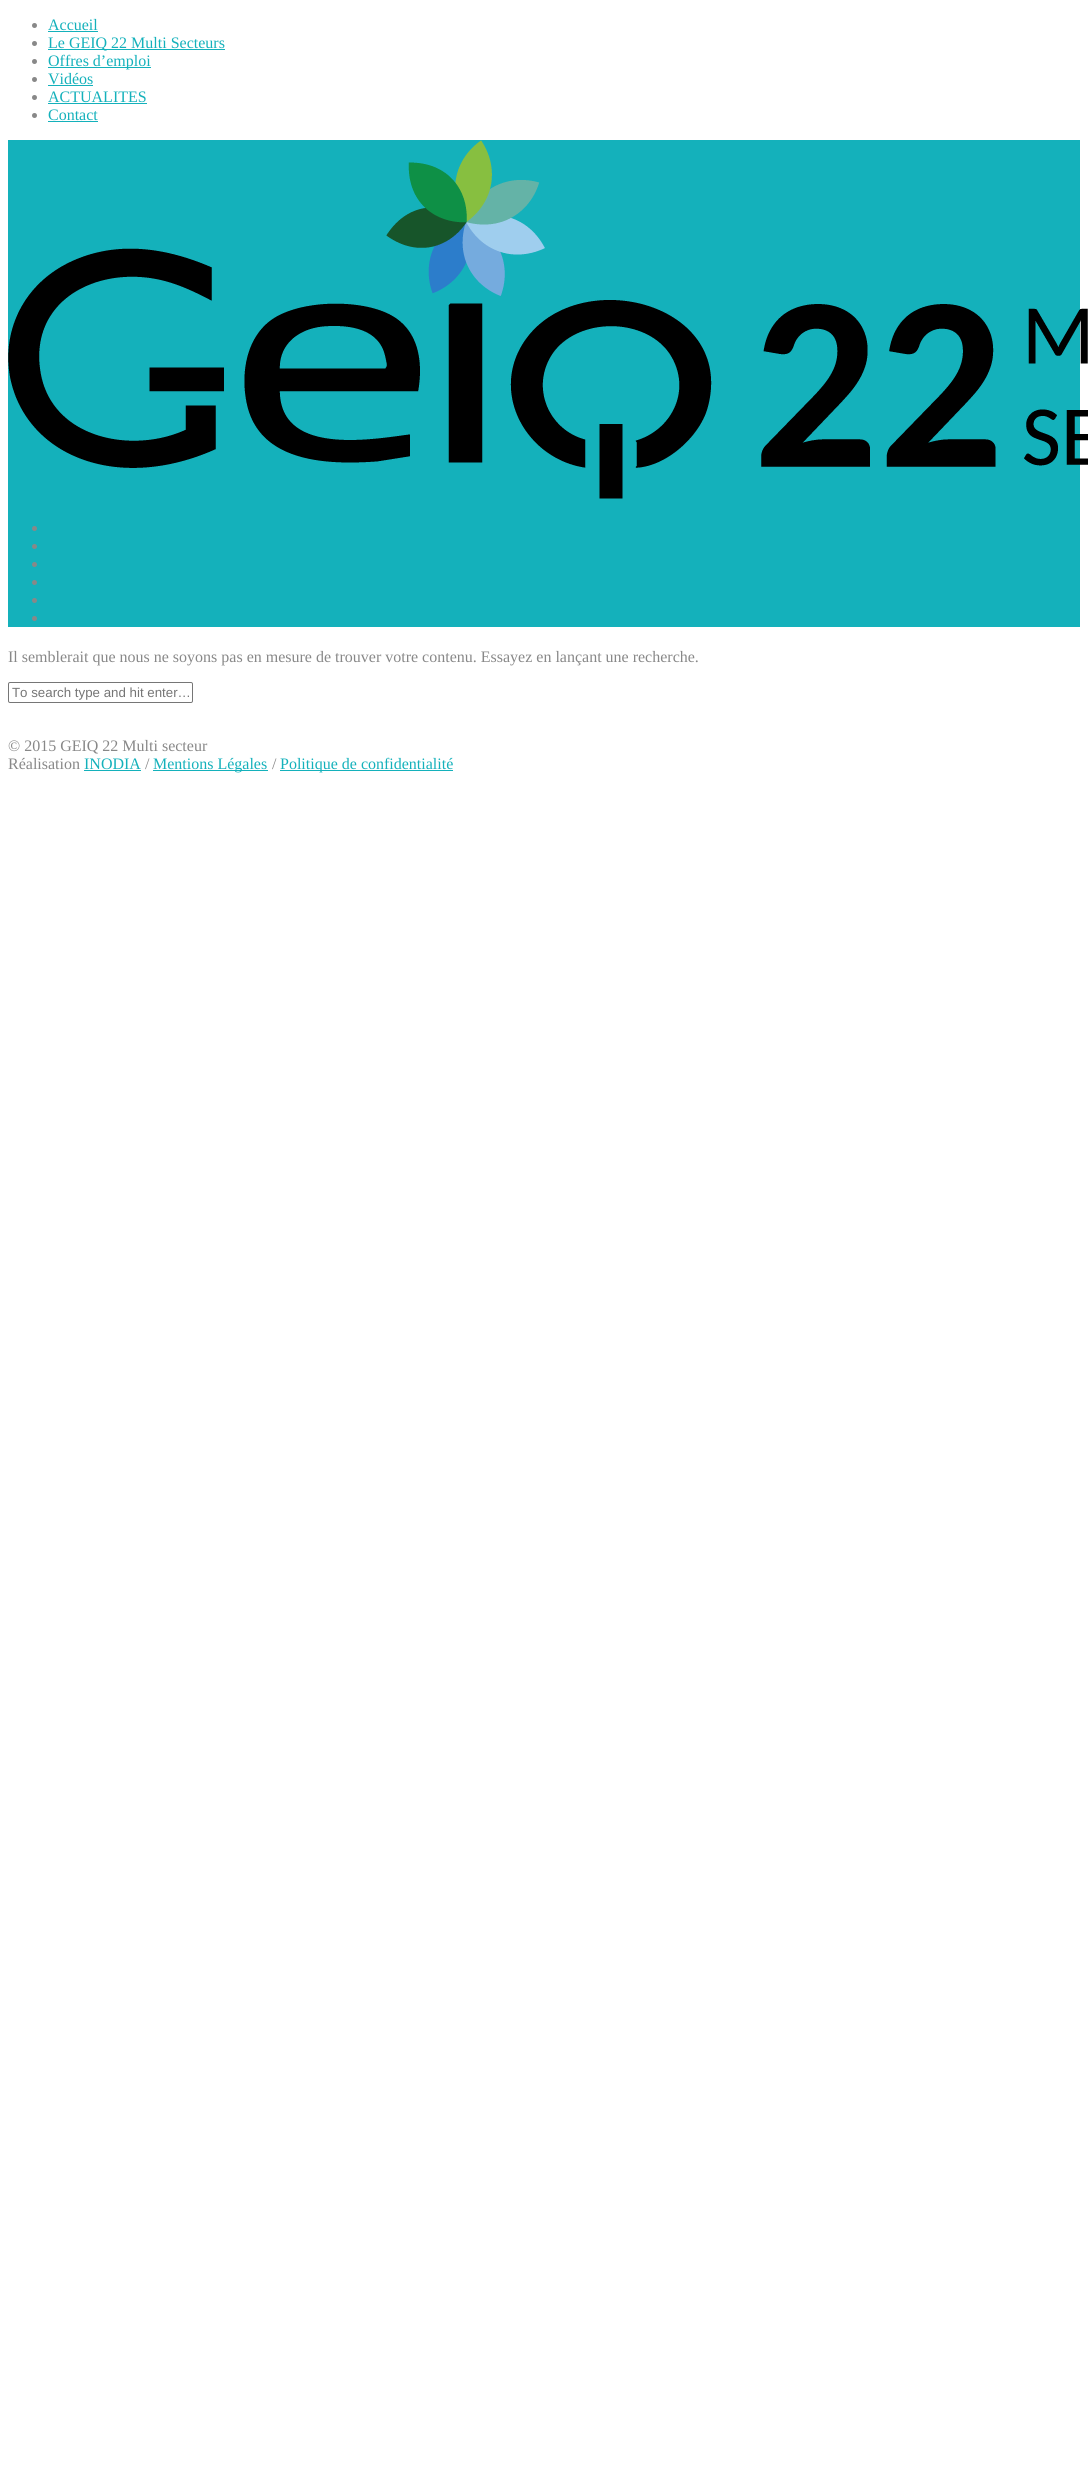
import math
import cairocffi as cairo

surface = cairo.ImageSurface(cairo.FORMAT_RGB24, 1088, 2469)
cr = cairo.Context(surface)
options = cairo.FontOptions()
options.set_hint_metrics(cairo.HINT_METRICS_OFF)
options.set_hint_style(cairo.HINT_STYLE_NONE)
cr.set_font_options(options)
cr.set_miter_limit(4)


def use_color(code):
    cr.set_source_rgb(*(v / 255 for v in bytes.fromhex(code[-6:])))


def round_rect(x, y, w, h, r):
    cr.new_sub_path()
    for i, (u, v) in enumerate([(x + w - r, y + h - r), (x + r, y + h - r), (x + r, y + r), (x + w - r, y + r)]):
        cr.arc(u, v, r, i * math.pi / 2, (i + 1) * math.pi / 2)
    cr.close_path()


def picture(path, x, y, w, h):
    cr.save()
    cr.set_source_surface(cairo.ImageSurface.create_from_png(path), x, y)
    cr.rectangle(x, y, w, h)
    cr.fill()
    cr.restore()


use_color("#ffffff")
cr.paint()
use_color("#888888")
cr.arc(34.5, 25.5, 2.5, 0, 2 * math.pi)
cr.fill()
cr.select_font_face("Liberation Serif")
cr.set_font_size(16)
use_color("#14b1bb")
cr.move_to(48, 30)
cr.show_text("Accueil")
cr.rectangle(48, 31, 50, 1)
cr.fill()
use_color("#888888")
cr.arc(34.5, 43.5, 2.5, 0, 2 * math.pi)
cr.fill()
use_color("#14b1bb")
cr.rectangle(48, 49, 177, 1)
cr.fill()
cr.move_to(48, 48)
cr.show_text("Le GEIQ 22 Multi Secteurs")
use_color("#888888")
cr.new_path()
cr.arc(34.5, 61.5, 2.5, 0, 2 * math.pi)
cr.fill()
use_color("#14b1bb")
cr.rectangle(48, 67, 103, 1)
cr.fill()
cr.move_to(48, 66)
cr.show_text("Offres d’emploi")
use_color("#888888")
cr.new_path()
cr.arc(34.5, 79.5, 2.5, 0, 2 * math.pi)
cr.fill()
use_color("#14b1bb")
cr.move_to(48, 84)
cr.show_text("Vidéos")
cr.rectangle(48, 85, 45, 1)
cr.fill()
use_color("#888888")
cr.arc(34.5, 97.5, 2.5, 0, 2 * math.pi)
cr.fill()
use_color("#14b1bb")
cr.move_to(48, 102)
cr.show_text("ACTUALITES")
cr.rectangle(48, 103, 99, 1)
cr.fill()
use_color("#888888")
cr.arc(34.5, 115.5, 2.5, 0, 2 * math.pi)
cr.fill()
use_color("#14b1bb")
cr.move_to(48, 120)
cr.show_text("Contact")
cr.rectangle(48, 121, 50, 1)
cr.fill()
cr.rectangle(8, 140, 1072, 487)
cr.fill()
picture("img1.png", 8, 140, 1080, 359)
use_color("#888888")
cr.arc(34.5, 528.5, 2.5, 0, 2 * math.pi)
cr.fill()
cr.arc(34.5, 546.5, 2.5, 0, 2 * math.pi)
cr.fill()
cr.arc(34.5, 564.5, 2.5, 0, 2 * math.pi)
cr.fill()
cr.arc(34.5, 582.5, 2.5, 0, 2 * math.pi)
cr.fill()
cr.arc(34.5, 600.5, 2.5, 0, 2 * math.pi)
cr.fill()
cr.arc(34.5, 618.5, 2.5, 0, 2 * math.pi)
cr.fill()
cr.move_to(8, 662)
cr.show_text("Il semblerait que nous ne soyons pas en mesure de trouver votre contenu. Essayez en lançant une recherche.")
round_rect(8.5, 682.5, 184, 20, 1.5)
use_color("#767676")
cr.set_line_width(1)
cr.stroke()
cr.select_font_face("Liberation Sans")
cr.set_font_size(13.3)
use_color("#757575")
cr.move_to(12, 697)
cr.show_text("To search type and hit enter…")
cr.select_font_face("Liberation Serif")
cr.set_font_size(16)
use_color("#888888")
cr.move_to(8, 751)
cr.show_text("© 2015 GEIQ 22 Multi secteur")
cr.move_to(8, 769)
cr.show_text("Réalisation")
use_color("#14b1bb")
cr.move_to(84, 769)
cr.show_text("INODIA")
cr.rectangle(84, 770, 57, 1)
cr.fill()
use_color("#888888")
cr.move_to(145, 769)
cr.show_text("/")
use_color("#14b1bb")
cr.rectangle(153, 770, 115, 1)
cr.fill()
cr.move_to(153, 769)
cr.show_text("Mentions Légales")
use_color("#888888")
cr.move_to(272, 769)
cr.show_text("/")
use_color("#14b1bb")
cr.rectangle(280, 770, 173, 1)
cr.fill()
cr.move_to(280, 769)
cr.show_text("Politique de confidentialité")
surface.write_to_png("result.png")
